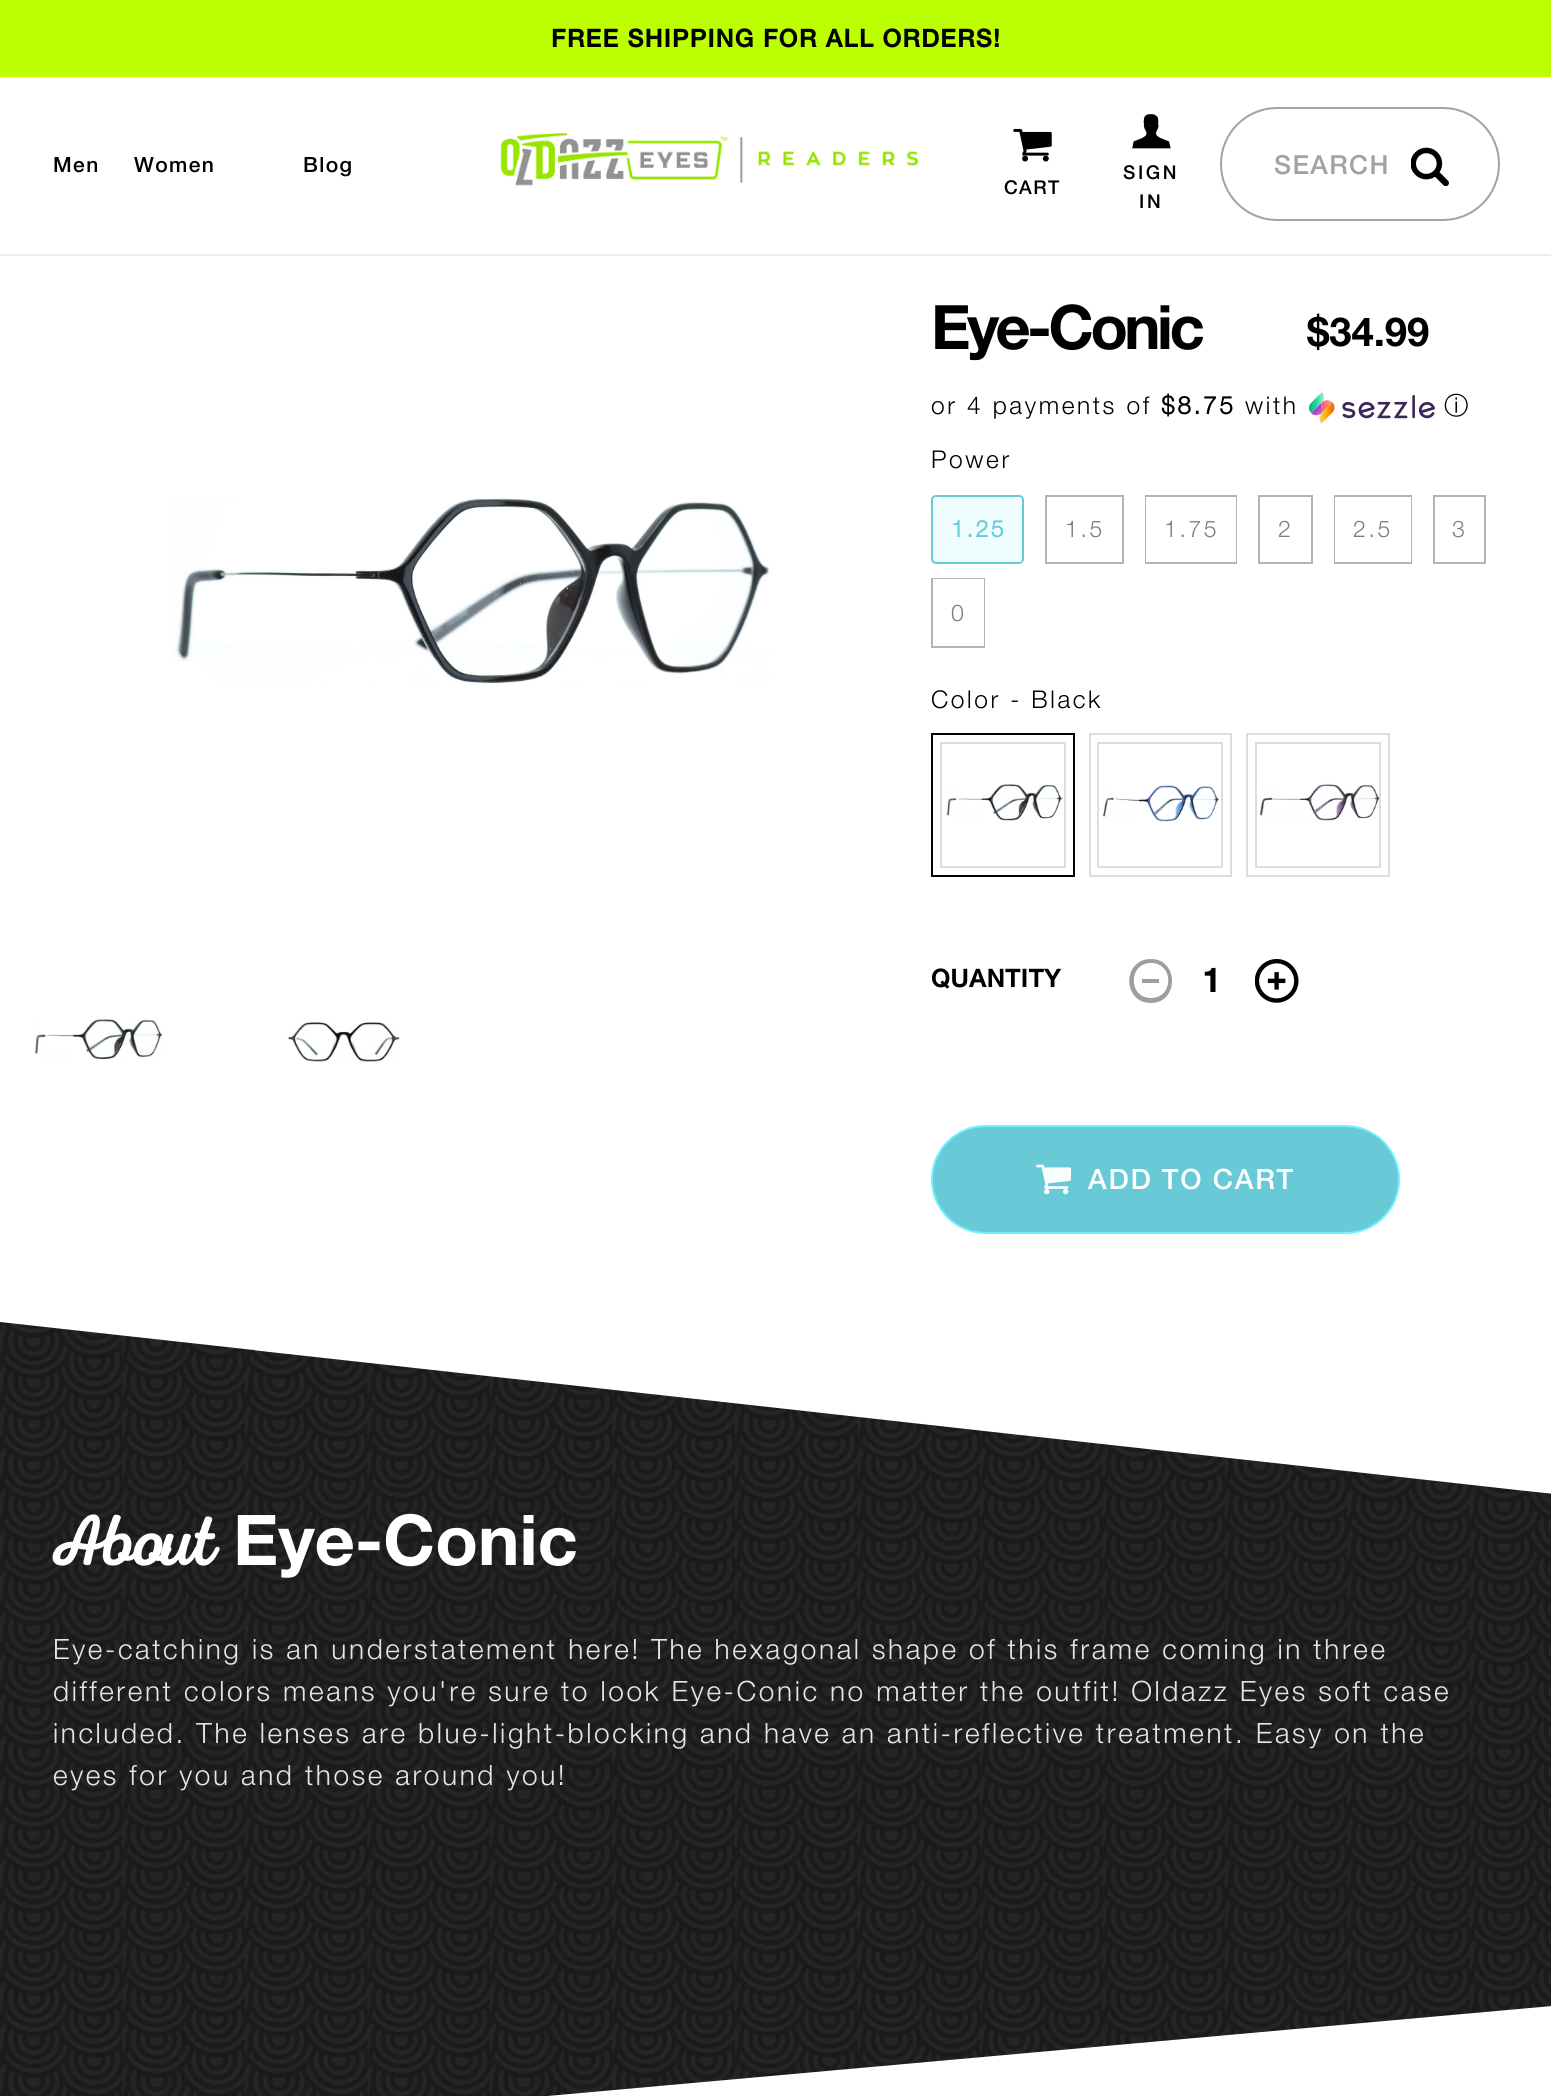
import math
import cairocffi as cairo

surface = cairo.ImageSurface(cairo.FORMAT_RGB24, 1551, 2096)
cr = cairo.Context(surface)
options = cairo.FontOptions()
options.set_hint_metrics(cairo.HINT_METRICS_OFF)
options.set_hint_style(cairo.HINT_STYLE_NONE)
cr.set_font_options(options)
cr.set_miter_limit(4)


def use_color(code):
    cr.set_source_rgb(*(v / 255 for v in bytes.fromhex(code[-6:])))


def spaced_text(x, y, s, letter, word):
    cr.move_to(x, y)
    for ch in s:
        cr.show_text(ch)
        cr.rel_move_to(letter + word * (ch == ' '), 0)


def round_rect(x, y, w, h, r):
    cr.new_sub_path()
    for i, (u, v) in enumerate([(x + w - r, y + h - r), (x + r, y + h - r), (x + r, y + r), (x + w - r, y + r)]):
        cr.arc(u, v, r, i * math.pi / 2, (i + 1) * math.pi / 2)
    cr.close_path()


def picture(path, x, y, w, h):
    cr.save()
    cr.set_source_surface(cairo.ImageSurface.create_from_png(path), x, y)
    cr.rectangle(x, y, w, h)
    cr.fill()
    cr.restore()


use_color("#ffffff")
cr.paint()
use_color("#bbff00")
cr.rectangle(0, 0, 1551, 77)
cr.fill()
cr.select_font_face("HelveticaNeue", cairo.FONT_SLANT_NORMAL, cairo.FONT_WEIGHT_BOLD)
cr.set_font_size(24.5)
use_color("#000000")
spaced_text(551, 47, "FREE SHIPPING FOR ALL ORDERS!", 1.4, 0)
use_color("#eeeeee")
cr.rectangle(0, 254, 1551, 2)
cr.fill()
cr.select_font_face("HelveticaNeue Medium")
cr.set_font_size(21)
use_color("#000000")
spaced_text(53, 172, "Men", 1.4, 0)
spaced_text(134, 172, "Women", 1.4, 0)
spaced_text(303, 172, "Blog", 1.4, 0)
picture("img1.png", 500, 132, 419, 54)
picture("img2.png", 1013, 128, 39, 34)
cr.set_font_size(19)
spaced_text(1004, 194, "CART", 1.4, 0)
picture("img3.png", 1132, 114, 39, 35)
spaced_text(1123, 179, "SIGN", 2.62, 0)
spaced_text(1139, 208, "IN", 2.62, 0)
round_rect(1221, 108, 278, 112, 56)
use_color("#a2a2a2")
cr.stroke()
cr.set_font_size(26.25)
spaced_text(1274, 174, "SEARCH", 1.4, 0)
picture("img4.png", 1411, 147, 38, 39)
picture("img5.png", 170, 498, 600, 187)
picture("img6.png", 33, 1019, 130, 41)
picture("img7.png", 287, 1020, 113, 43)
cr.select_font_face("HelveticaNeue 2", cairo.FONT_SLANT_NORMAL, cairo.FONT_WEIGHT_BOLD)
cr.set_font_size(61.25)
use_color("#000000")
spaced_text(931, 349, "Eye-Conic", -3.5, 0)
cr.set_font_size(40)
cr.move_to(1307, 346)
cr.show_text("$34.99")
cr.select_font_face("HelveticaNeue Light")
cr.set_font_size(24.5)
spaced_text(931, 414, "or 4 payments of", 2.62, 0)
cr.select_font_face("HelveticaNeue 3", cairo.FONT_SLANT_NORMAL, cairo.FONT_WEIGHT_BOLD)
spaced_text(1161, 414, "$8.75", 2.62, 0)
cr.select_font_face("HelveticaNeue Light")
spaced_text(1245, 414, "with", 2.62, 0)
picture("img8.png", 1309, 392, 126, 32)
cr.select_font_face("WenQuanYi Zen Hei Medium")
spaced_text(1444, 414, "ⓘ", 2.62, 0)
cr.select_font_face("HelveticaNeue Light")
spaced_text(931, 468, "Power", 2.62, 0)
use_color("#f3fbfc")
round_rect(932, 496, 91, 67, 4)
cr.fill_preserve()
use_color("#68c9d7")
cr.stroke()
use_color("#effdff")
round_rect(933, 497, 89, 65, 4)
cr.fill()
cr.select_font_face("HelveticaNeue 3", cairo.FONT_SLANT_NORMAL, cairo.FONT_WEIGHT_BOLD)
cr.set_font_size(23)
use_color("#68c9d7")
spaced_text(951, 537, "1.25", 2.62, 0)
cr.rectangle(1046, 496, 77, 67)
use_color("#b3b3b3")
cr.stroke()
cr.select_font_face("HelveticaNeue Light")
use_color("#7d7d7d")
spaced_text(1065, 537, "1.5", 2.62, 0)
cr.rectangle(1146, 496, 90, 67)
use_color("#b3b3b3")
cr.stroke()
use_color("#ffffff")
cr.rectangle(1146, 497, 90, 65)
cr.fill()
use_color("#7d7d7d")
spaced_text(1164, 537, "1.75", 2.62, 0)
cr.rectangle(1259, 496, 53, 67)
use_color("#b3b3b3")
cr.stroke()
use_color("#7d7d7d")
spaced_text(1278, 537, "2", 2.62, 0)
cr.rectangle(1335, 496, 76, 67)
use_color("#b3b3b3")
cr.stroke()
use_color("#ffffff")
cr.rectangle(1335, 497, 76, 65)
cr.fill()
use_color("#7d7d7d")
spaced_text(1353, 537, "2.5", 2.62, 0)
cr.rectangle(1434, 496, 51, 67)
use_color("#b3b3b3")
cr.stroke()
use_color("#7d7d7d")
spaced_text(1452, 537, "3", 2.62, 0)
cr.rectangle(932, 579, 52, 68)
use_color("#b3b3b3")
cr.stroke()
use_color("#ffffff")
cr.rectangle(933, 579, 51, 67)
cr.fill()
use_color("#7d7d7d")
spaced_text(951, 621, "0", 2.62, 0)
cr.set_font_size(24.5)
use_color("#000000")
spaced_text(931, 708, "Color - Black", 2.62, 0)
cr.rectangle(932, 734, 142, 142)
cr.stroke()
picture("img9.png", 946, 784, 118, 38)
cr.rectangle(941, 743, 124, 124)
use_color("#dddddd")
cr.stroke()
cr.rectangle(1090, 734, 141, 142)
cr.stroke()
picture("img10.png", 1102, 783, 119, 39)
cr.rectangle(1098, 743, 124, 124)
cr.stroke()
cr.rectangle(1247, 734, 142, 142)
cr.stroke()
picture("img11.png", 1259, 783, 120, 39)
cr.rectangle(1256, 743, 124, 124)
cr.stroke()
cr.select_font_face("HelveticaNeue", cairo.FONT_SLANT_NORMAL, cairo.FONT_WEIGHT_BOLD)
use_color("#000000")
spaced_text(931, 987, "QUANTITY", 1, 0)
use_color("#9e9e9e")
cr.new_path()
cr.move_to(1151, 959)
cr.curve_to(1122, 959, 1122, 1003, 1151, 1003)
cr.curve_to(1179, 1003, 1179, 959, 1151, 959)
cr.close_path()
cr.move_to(1151, 998)
cr.curve_to(1128, 998, 1128, 963, 1151, 963)
cr.curve_to(1174, 963, 1174, 998, 1151, 998)
cr.close_path()
cr.move_to(1142, 983)
cr.line_to(1159, 983)
cr.line_to(1159, 979)
cr.line_to(1142, 979)
cr.close_path()
cr.fill()
picture("img12.png", 1255, 959, 44, 44)
cr.set_font_size(33)
use_color("#000000")
cr.move_to(1203, 992)
cr.show_text("1")
use_color("#68cad7")
round_rect(932, 1126, 467, 107, 53.5)
cr.fill_preserve()
use_color("#71f0ff")
cr.stroke()
picture("img13.png", 1036, 1164, 35, 31)
cr.select_font_face("HelveticaNeue Medium")
cr.set_font_size(28)
use_color("#ffffff")
spaced_text(1088, 1189, "ADD TO CART", 1.75, 0)
picture("img14.png", 0, 1322, 1551, 774)
cr.select_font_face("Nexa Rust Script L", cairo.FONT_SLANT_NORMAL, cairo.FONT_WEIGHT_BOLD)
cr.set_font_size(70)
cr.move_to(53, 1565)
cr.show_text("About")
cr.select_font_face("HelveticaNeue 2", cairo.FONT_SLANT_NORMAL, cairo.FONT_WEIGHT_BOLD)
cr.move_to(233, 1565)
cr.show_text("Eye-Conic")
cr.select_font_face("HelveticaNeue Light")
cr.set_font_size(28)
use_color("#e6e6e6")
spaced_text(53, 1659, "Eye-catching is an understatement here! The hexagonal shape of this frame coming in three", 2.62, 0)
spaced_text(53, 1701, "different colors means you're sure to look Eye-Conic no matter the outfit! Oldazz Eyes soft case", 2.62, 0)
spaced_text(53, 1743, "included. The lenses are blue-light-blocking and have an anti-reflective treatment. Easy on the", 2.62, 0)
spaced_text(53, 1785, "eyes for you and those around you!", 2.62, 0)
use_color("#ffffff")
cr.new_path()
cr.move_to(0, 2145)
cr.line_to(0, 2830)
cr.line_to(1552, 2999)
cr.line_to(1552, 2006)
cr.close_path()
cr.fill()
surface.write_to_png("result.png")
